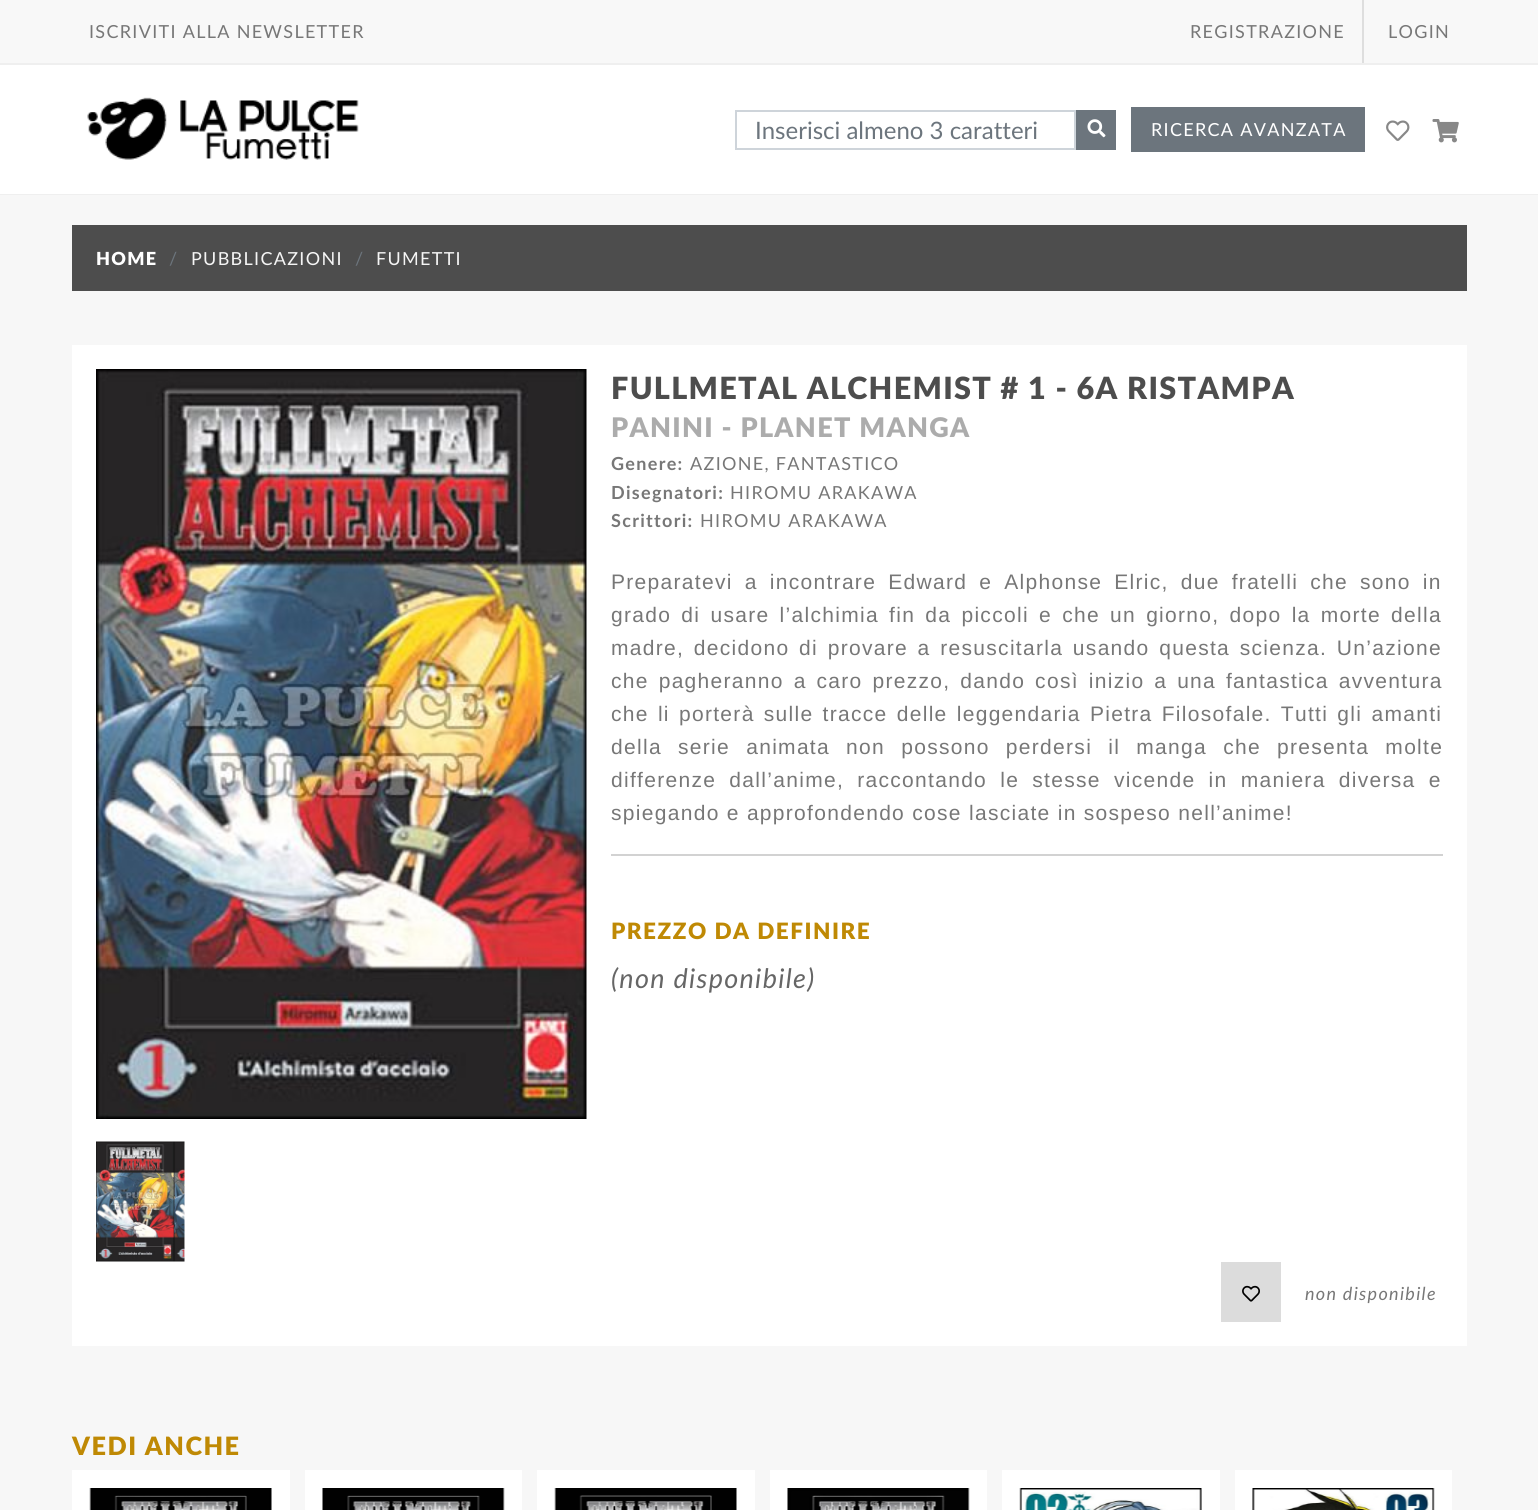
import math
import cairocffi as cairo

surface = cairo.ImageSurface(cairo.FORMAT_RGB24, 1538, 1510)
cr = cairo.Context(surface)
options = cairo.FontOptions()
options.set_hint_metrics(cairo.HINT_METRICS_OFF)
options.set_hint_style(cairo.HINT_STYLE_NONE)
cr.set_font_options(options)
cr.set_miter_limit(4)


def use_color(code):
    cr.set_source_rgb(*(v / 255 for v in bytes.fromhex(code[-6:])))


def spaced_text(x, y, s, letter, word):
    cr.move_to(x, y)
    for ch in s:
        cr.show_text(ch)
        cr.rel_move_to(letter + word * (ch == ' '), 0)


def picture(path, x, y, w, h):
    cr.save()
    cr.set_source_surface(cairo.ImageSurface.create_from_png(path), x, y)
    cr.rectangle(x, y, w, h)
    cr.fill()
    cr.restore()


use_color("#ffffff")
cr.paint()
use_color("#f8f8f8")
cr.rectangle(0, 0, 1538, 63)
cr.fill()
cr.select_font_face("Lato")
cr.set_font_size(18)
use_color("#777777")
spaced_text(89, 38, "ISCRIVITI ALLA NEWSLETTER", 1.3, 0)
use_color("#dedede")
cr.rectangle(1362, 0, 2, 63)
cr.fill()
use_color("#777777")
spaced_text(1190, 38, "REGISTRAZIONE", 1.3, 0)
spaced_text(1388, 38, "LOGIN", 1.3, 0)
use_color("#efefef")
cr.rectangle(0, 63, 1538, 2)
cr.fill()
cr.rectangle(0, 194, 1538, 1)
cr.fill()
picture("img1.png", 87, 97, 272, 63)
cr.rectangle(736, 111, 339, 38)
use_color("#ced4da")
cr.stroke()
cr.set_font_size(24)
use_color("#6c757d")
cr.move_to(755, 139)
cr.show_text("Inserisci almeno 3 caratteri")
cr.rectangle(1076, 110, 40, 40)
cr.fill()
picture("img2.png", 1087, 119, 19, 19)
cr.rectangle(1131, 107, 234, 45)
cr.fill()
cr.set_font_size(18)
use_color("#ffffff")
spaced_text(1151, 136, "RICERCA AVANZATA", 1.3, 0)
picture("img3.png", 1386, 120, 24, 21)
picture("img4.png", 1432, 119, 27, 24)
use_color("#f7f7f7")
cr.rectangle(0, 195, 1538, 1315)
cr.fill()
use_color("#4d4d4d")
cr.rectangle(72, 225, 1395, 66)
cr.fill()
cr.select_font_face("Lato ExtraBold")
use_color("#ffffff")
spaced_text(96, 265, "HOME", 1.3, 0)
cr.select_font_face("Lato")
use_color("#6c757d")
spaced_text(169, 265, "/", 1.3, 0)
use_color("#f5f5f5")
spaced_text(191, 265, "PUBBLICAZIONI", 1.3, 0)
use_color("#6c757d")
spaced_text(355, 265, "/", 1.3, 0)
use_color("#f5f5f5")
spaced_text(376, 265, "FUMETTI", 1.3, 0)
use_color("#ffffff")
cr.rectangle(72, 345, 1395, 1001)
cr.fill()
picture("img5.png", 96, 369, 491, 750)
picture("img6.png", 96, 1141, 89, 121)
cr.select_font_face("Lato ExtraBold")
cr.set_font_size(30.6)
use_color("#4d4d4d")
spaced_text(611, 399, "FULLMETAL ALCHEMIST # 1 - 6A RISTAMPA", 1.3, 0)
cr.set_font_size(27)
use_color("#acacac")
spaced_text(611, 437, "PANINI - PLANET MANGA", 1.3, 0)
cr.select_font_face("Lato", cairo.FONT_SLANT_NORMAL, cairo.FONT_WEIGHT_BOLD)
cr.set_font_size(18)
use_color("#777777")
spaced_text(611, 470, "Genere:", 1.3, 0)
cr.select_font_face("Lato")
spaced_text(690, 470, "AZIONE, FANTASTICO", 1.3, 0)
cr.select_font_face("Lato", cairo.FONT_SLANT_NORMAL, cairo.FONT_WEIGHT_BOLD)
spaced_text(611, 499, "Disegnatori:", 1.3, 0)
cr.select_font_face("Lato")
spaced_text(730, 499, "HIROMU ARAKAWA", 1.3, 0)
cr.select_font_face("Lato", cairo.FONT_SLANT_NORMAL, cairo.FONT_WEIGHT_BOLD)
spaced_text(611, 527, "Scrittori:", 1.3, 0)
cr.select_font_face("Lato")
spaced_text(700, 527, "HIROMU ARAKAWA", 1.3, 0)
use_color("#d2d2d2")
cr.rectangle(611, 854, 832, 2)
cr.fill()
cr.select_font_face("Liberation Sans")
cr.set_font_size(21)
use_color("#777777")
spaced_text(611, 589, "Preparatevi a incontrare Edward e Alphonse Elric, due fratelli che sono in", 1.3, 4.9)
spaced_text(611, 622, "grado di usare l’alchimia fin da piccoli e che un giorno, dopo la morte della", 1.3, 3)
spaced_text(611, 655, "madre, decidono di provare a resuscitarla usando questa scienza. Un’azione", 1.3, 2.5)
spaced_text(611, 688, "che pagheranno a caro prezzo, dando così inizio a una fantastica avventura", 1.3, 2.75)
spaced_text(611, 721, "che li porterà sulle tracce delle leggendaria Pietra Filosofale. Tutti gli amanti", 1.3, 2)
spaced_text(611, 754, "della serie animata non possono perdersi il manga che presenta molte", 1.3, 9)
spaced_text(611, 787, "differenze dall’anime, raccontando le stesse vicende in maniera diversa e", 1.3, 6)
spaced_text(611, 820, "spiegando e approfondendo cose lasciate in sospeso nell’anime!", 1.3, 0)
cr.select_font_face("Lato ExtraBold")
cr.set_font_size(22.5)
use_color("#bf8904")
spaced_text(611, 939, "PREZZO DA DEFINIRE", 1.5, 0)
cr.select_font_face("Lato", cairo.FONT_SLANT_ITALIC)
cr.set_font_size(27)
use_color("#666666")
spaced_text(611, 988, "(non disponibile)", 1.3, 0)
use_color("#dcdcdc")
cr.rectangle(1221, 1262, 60, 60)
cr.fill()
picture("img7.png", 1242, 1285, 18, 17)
cr.set_font_size(18)
use_color("#777777")
spaced_text(1305, 1300, "non disponibile", 1.3, 0)
cr.select_font_face("Lato ExtraBold")
cr.set_font_size(25.25)
use_color("#bf8904")
spaced_text(72, 1455, "VEDI ANCHE", 1.5, 0)
use_color("#ffffff")
cr.rectangle(72, 1470, 218, 40)
cr.fill()
picture("img8.png", 89, 1488, 183, 22)
cr.rectangle(305, 1470, 217, 40)
cr.fill()
picture("img9.png", 322, 1488, 183, 22)
cr.rectangle(537, 1470, 218, 40)
cr.fill()
picture("img10.png", 554, 1488, 183, 22)
cr.rectangle(770, 1470, 217, 40)
cr.fill()
picture("img11.png", 787, 1488, 183, 22)
cr.rectangle(1002, 1470, 218, 40)
cr.fill()
picture("img12.png", 1019, 1488, 183, 22)
cr.rectangle(1235, 1470, 217, 40)
cr.fill()
picture("img13.png", 1252, 1488, 183, 22)
surface.write_to_png("result.png")
